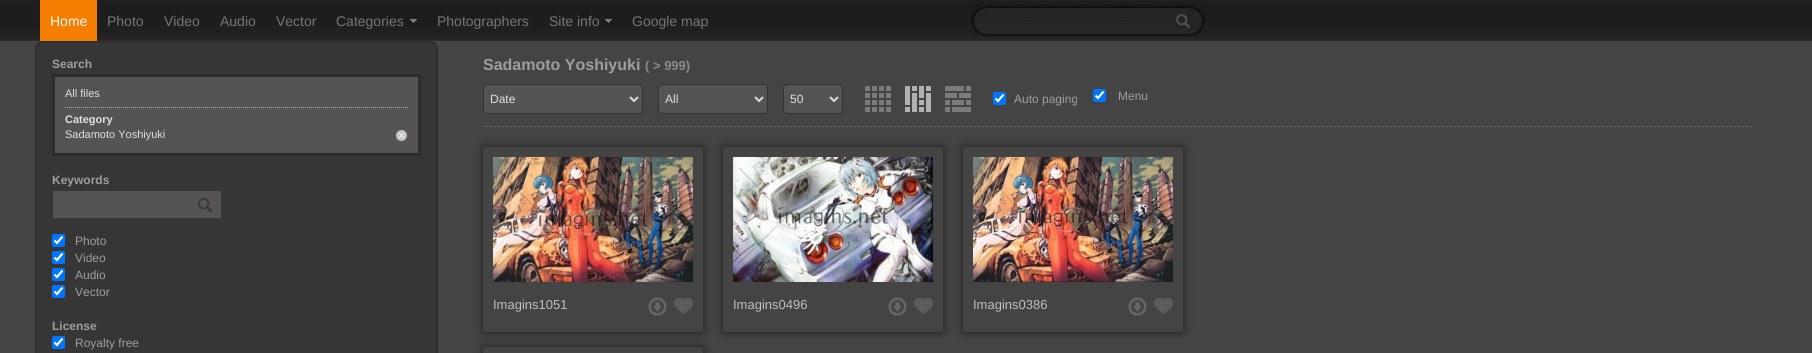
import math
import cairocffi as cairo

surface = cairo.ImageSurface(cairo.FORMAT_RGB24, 1812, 353)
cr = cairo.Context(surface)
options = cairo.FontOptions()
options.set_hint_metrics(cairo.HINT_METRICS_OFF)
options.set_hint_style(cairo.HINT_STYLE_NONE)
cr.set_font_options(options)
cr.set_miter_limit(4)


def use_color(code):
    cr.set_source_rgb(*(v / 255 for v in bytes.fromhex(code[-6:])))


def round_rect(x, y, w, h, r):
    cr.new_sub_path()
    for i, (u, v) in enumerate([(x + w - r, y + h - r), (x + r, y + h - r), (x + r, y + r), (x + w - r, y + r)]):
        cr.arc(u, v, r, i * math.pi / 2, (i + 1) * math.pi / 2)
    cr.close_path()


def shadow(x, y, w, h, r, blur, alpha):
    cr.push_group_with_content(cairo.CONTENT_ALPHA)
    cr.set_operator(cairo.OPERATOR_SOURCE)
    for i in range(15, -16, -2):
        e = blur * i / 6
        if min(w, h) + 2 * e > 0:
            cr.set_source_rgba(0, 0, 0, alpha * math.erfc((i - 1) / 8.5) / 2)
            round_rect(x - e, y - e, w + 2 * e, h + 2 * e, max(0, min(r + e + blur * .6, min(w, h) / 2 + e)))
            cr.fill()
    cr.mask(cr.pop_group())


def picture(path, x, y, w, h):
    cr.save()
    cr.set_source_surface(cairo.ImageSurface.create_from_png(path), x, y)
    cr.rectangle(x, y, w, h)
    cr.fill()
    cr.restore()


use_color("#444444")
cr.paint()
picture("img1.png", 0, 0, 1812, 41)
cr.set_source_rgba(0.996, 0.518, 0.008, 0.95)
cr.rectangle(40, 0, 57, 41)
cr.fill()
cr.select_font_face("Liberation Sans")
cr.set_font_size(14)
use_color("#fef9f2")
cr.move_to(50, 26)
cr.show_text("Home")
use_color("#767672")
cr.move_to(107, 26)
cr.show_text("Photo")
cr.move_to(164, 26)
cr.show_text("Video")
cr.move_to(220, 26)
cr.show_text("Audio")
cr.move_to(276, 26)
cr.show_text("Vector")
cr.move_to(336, 26)
cr.show_text("Categories")
picture("img2.png", 410, 19, 7, 4)
cr.move_to(437, 26)
cr.show_text("Photographers")
cr.move_to(549, 26)
cr.show_text("Site info")
picture("img2.png", 605, 19, 7, 4)
cr.move_to(632, 26)
cr.show_text("Google map")
picture("img3.png", 970, 0, 236, 37)
picture("img4.png", 1176, 14, 14, 14)
use_color("#363636")
cr.new_path()
cr.move_to(43, 41)
cr.line_to(430, 41)
cr.curve_to(434.5, 41, 438, 44.5, 438, 49)
cr.line_to(438, 55)
cr.line_to(35, 55)
cr.line_to(35, 49)
cr.curve_to(35, 44.5, 38.5, 41, 43, 41)
cr.close_path()
cr.fill()
use_color("#302e2e")
cr.set_fill_rule(cairo.FILL_RULE_EVEN_ODD)
cr.new_path()
cr.move_to(43, 41)
cr.line_to(430, 41)
cr.curve_to(434, 41, 438, 45, 438, 49)
cr.line_to(438, 55)
cr.line_to(35, 55)
cr.curve_to(35, 49, 35, 41, 43, 41)
cr.close_path()
cr.move_to(43, 43)
cr.line_to(430, 43)
cr.curve_to(433, 43, 436, 46, 436, 49)
cr.line_to(436, 55)
cr.line_to(37, 55)
cr.curve_to(37, 50, 36, 43, 43, 43)
cr.close_path()
cr.fill()
use_color("#363636")
cr.rectangle(37, 55, 399, 298)
cr.fill()
use_color("#302e2e")
cr.rectangle(436, 55, 2, 298)
cr.fill()
cr.rectangle(35, 55, 2, 298)
cr.fill()
cr.select_font_face("Liberation Sans", cairo.FONT_SLANT_NORMAL, cairo.FONT_WEIGHT_BOLD)
cr.set_font_size(12)
use_color("#9f9e9e")
cr.move_to(52, 68)
cr.show_text("Search")
use_color("#555353")
cr.rectangle(53.5, 75.5, 366, 79)
cr.fill_preserve()
use_color("#2e2d2d")
cr.set_line_width(3)
cr.stroke()
cr.select_font_face("Liberation Sans")
cr.set_font_size(11)
use_color("#e0e0e0")
cr.move_to(65, 97)
cr.show_text("All files")
cr.new_path()
cr.move_to(65, 107.5)
cr.line_to(408, 107.5)
use_color("#b3b3b3")
cr.set_line_width(1)
cr.set_dash([1, 1])
cr.stroke()
cr.select_font_face("Liberation Sans", cairo.FONT_SLANT_NORMAL, cairo.FONT_WEIGHT_BOLD)
use_color("#e0e0e0")
cr.move_to(65, 123)
cr.show_text("Category")
cr.select_font_face("Liberation Sans")
cr.move_to(65, 138)
cr.show_text("Sadamoto Yoshiyuki")
picture("img5.png", 396, 130, 11, 11)
cr.select_font_face("Liberation Sans", cairo.FONT_SLANT_NORMAL, cairo.FONT_WEIGHT_BOLD)
cr.set_font_size(12)
use_color("#9f9e9e")
cr.move_to(52, 184)
cr.show_text("Keywords")
picture("img6.png", 53, 191, 168, 27)
use_color("#0075ff")
round_rect(52, 234, 13, 13, 2)
cr.fill()
cr.new_path()
cr.move_to(54.5, 240.5)
cr.line_to(57, 243)
cr.line_to(62.5, 236.5)
use_color("#ffffff")
cr.set_line_width(2.1)
cr.set_dash([])
cr.stroke()
cr.select_font_face("Liberation Sans")
use_color("#9f9e9e")
cr.move_to(75, 245)
cr.show_text("Photo")
use_color("#0075ff")
round_rect(52, 251, 13, 13, 2)
cr.fill()
cr.new_path()
cr.move_to(54.5, 257.5)
cr.line_to(57, 260)
cr.line_to(62.5, 253.5)
use_color("#ffffff")
cr.stroke()
use_color("#9f9e9e")
cr.move_to(75, 262)
cr.show_text("Video")
use_color("#0075ff")
round_rect(52, 268, 13, 13, 2)
cr.fill()
cr.new_path()
cr.move_to(54.5, 274.5)
cr.line_to(57, 277)
cr.line_to(62.5, 270.5)
use_color("#ffffff")
cr.stroke()
use_color("#9f9e9e")
cr.move_to(75, 279)
cr.show_text("Audio")
use_color("#0075ff")
round_rect(52, 285, 13, 13, 2)
cr.fill()
cr.new_path()
cr.move_to(54.5, 291.5)
cr.line_to(57, 294)
cr.line_to(62.5, 287.5)
use_color("#ffffff")
cr.stroke()
use_color("#9f9e9e")
cr.move_to(75, 296)
cr.show_text("Vector")
cr.select_font_face("Liberation Sans", cairo.FONT_SLANT_NORMAL, cairo.FONT_WEIGHT_BOLD)
cr.move_to(52, 330)
cr.show_text("License")
use_color("#0075ff")
round_rect(52, 336, 13, 13, 2)
cr.fill()
cr.new_path()
cr.move_to(54.5, 342.5)
cr.line_to(57, 345)
cr.line_to(62.5, 338.5)
use_color("#ffffff")
cr.stroke()
cr.select_font_face("Liberation Sans")
use_color("#9f9e9e")
cr.move_to(75, 347)
cr.show_text("Royalty free")
cr.new_path()
cr.move_to(483, 126.5)
cr.line_to(1752, 126.5)
use_color("#706f6f")
cr.set_line_width(1)
cr.set_dash([1, 1])
cr.stroke()
cr.select_font_face("Liberation Sans", cairo.FONT_SLANT_NORMAL, cairo.FONT_WEIGHT_BOLD)
cr.set_font_size(16)
use_color("#9f9e9e")
cr.move_to(483, 70)
cr.show_text("Sadamoto Yoshiyuki")
cr.set_font_size(13)
use_color("#8b8a8a")
cr.move_to(645, 70)
cr.show_text("( > 999)")
use_color("#555353")
round_rect(483.5, 84.5, 159, 29, 3.5)
cr.fill_preserve()
use_color("#343333")
cr.set_dash([])
cr.stroke()
cr.new_path()
cr.move_to(630, 97)
cr.line_to(634, 101)
cr.line_to(638, 97)
use_color("#dcdcdc")
cr.set_line_width(2)
cr.stroke()
cr.select_font_face("Liberation Sans")
cr.set_font_size(12)
use_color("#e0e0e0")
cr.move_to(490, 103)
cr.show_text("Date")
use_color("#555353")
round_rect(658.5, 84.5, 109, 29, 3.5)
cr.fill_preserve()
use_color("#343333")
cr.set_line_width(1)
cr.stroke()
cr.new_path()
cr.move_to(755, 97)
cr.line_to(759, 101)
cr.line_to(763, 97)
use_color("#dcdcdc")
cr.set_line_width(2)
cr.stroke()
use_color("#e0e0e0")
cr.move_to(665, 103)
cr.show_text("All")
use_color("#555353")
round_rect(783.5, 84.5, 59, 29, 3.5)
cr.fill_preserve()
use_color("#343333")
cr.set_line_width(1)
cr.stroke()
cr.new_path()
cr.move_to(830, 97)
cr.line_to(834, 101)
cr.line_to(838, 97)
use_color("#dcdcdc")
cr.set_line_width(2)
cr.stroke()
use_color("#e0e0e0")
cr.move_to(790, 103)
cr.show_text("50")
picture("img7.png", 865, 86, 26, 26)
picture("img8.png", 905, 86, 26, 26)
picture("img9.png", 945, 86, 26, 26)
use_color("#0075ff")
round_rect(993, 92, 13, 13, 2)
cr.fill()
cr.new_path()
cr.move_to(995.5, 98.5)
cr.line_to(998, 101)
cr.line_to(1003.5, 94.5)
use_color("#ffffff")
cr.set_line_width(2.1)
cr.stroke()
use_color("#9f9e9e")
cr.move_to(1014, 103)
cr.show_text("Auto paging")
use_color("#0075ff")
round_rect(1093, 89, 13, 13, 2)
cr.fill()
cr.new_path()
cr.move_to(1095.5, 95.5)
cr.line_to(1098, 98)
cr.line_to(1103.5, 91.5)
use_color("#ffffff")
cr.stroke()
use_color("#9f9e9e")
cr.move_to(1118, 100)
cr.show_text("Menu")
cr.save()
cr.new_path()
cr.move_to(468, 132)
cr.line_to(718, 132)
cr.line_to(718, 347)
cr.line_to(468, 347)
cr.close_path()
cr.move_to(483, 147)
cr.line_to(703, 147)
cr.line_to(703, 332)
cr.line_to(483, 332)
cr.close_path()
cr.clip()
use_color("#1f1f1f")
shadow(483, 147, 220, 185, 0, 4.5, 1)
cr.restore()
picture("img10.png", 493, 157, 200, 125)
cr.set_font_size(13)
use_color("#bebebe")
cr.move_to(493, 309)
cr.show_text("Imagins1051")
picture("img11.png", 648, 297, 19, 19)
picture("img12.png", 674, 298, 19, 16)
cr.save()
cr.new_path()
cr.move_to(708, 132)
cr.line_to(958, 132)
cr.line_to(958, 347)
cr.line_to(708, 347)
cr.close_path()
cr.move_to(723, 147)
cr.line_to(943, 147)
cr.line_to(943, 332)
cr.line_to(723, 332)
cr.close_path()
cr.clip()
use_color("#1f1f1f")
shadow(723, 147, 220, 185, 0, 4.5, 1)
cr.restore()
picture("img13.png", 733, 157, 200, 125)
cr.move_to(733, 309)
cr.show_text("Imagins0496")
picture("img11.png", 888, 297, 19, 19)
picture("img12.png", 914, 298, 19, 16)
cr.save()
cr.new_path()
cr.move_to(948, 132)
cr.line_to(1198, 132)
cr.line_to(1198, 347)
cr.line_to(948, 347)
cr.close_path()
cr.move_to(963, 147)
cr.line_to(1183, 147)
cr.line_to(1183, 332)
cr.line_to(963, 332)
cr.close_path()
cr.clip()
use_color("#1f1f1f")
shadow(963, 147, 220, 185, 0, 4.5, 1)
cr.restore()
picture("img14.png", 973, 157, 200, 125)
cr.move_to(973, 309)
cr.show_text("Imagins0386")
picture("img11.png", 1128, 297, 19, 19)
picture("img12.png", 1154, 298, 19, 16)
cr.save()
cr.new_path()
cr.move_to(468, 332)
cr.line_to(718, 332)
cr.line_to(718, 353)
cr.line_to(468, 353)
cr.close_path()
cr.move_to(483, 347)
cr.line_to(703, 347)
cr.line_to(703, 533)
cr.line_to(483, 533)
cr.close_path()
cr.clip()
use_color("#1f1f1f")
shadow(483, 347, 220, 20, 0, 4.5, 1)
cr.restore()
surface.write_to_png("result.png")
